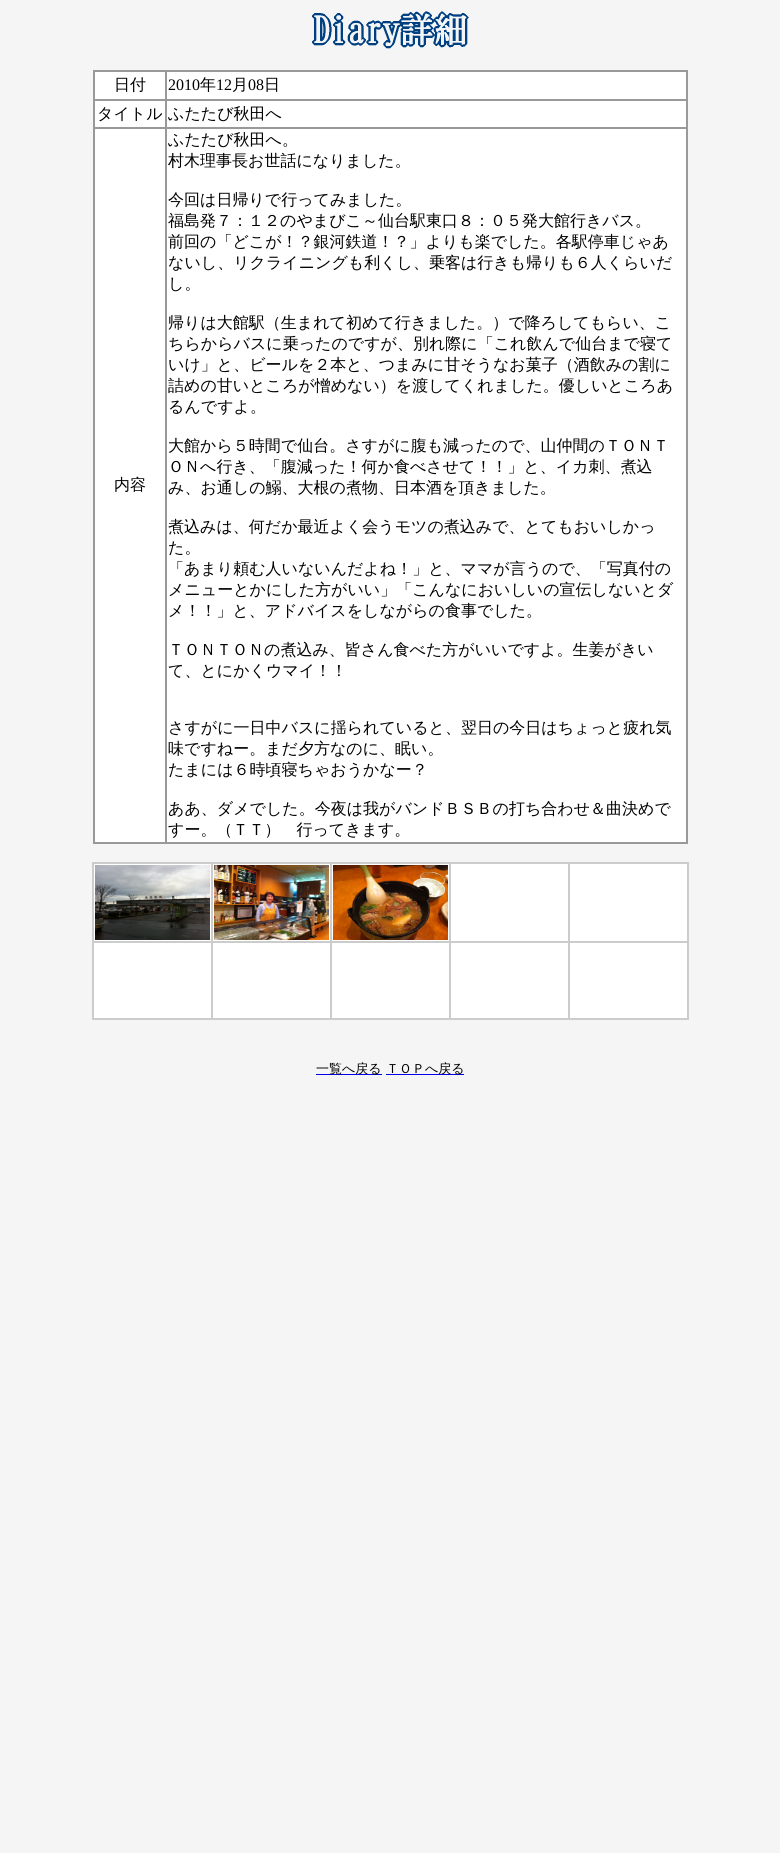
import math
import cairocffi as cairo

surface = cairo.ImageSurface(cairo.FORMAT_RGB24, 780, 1853)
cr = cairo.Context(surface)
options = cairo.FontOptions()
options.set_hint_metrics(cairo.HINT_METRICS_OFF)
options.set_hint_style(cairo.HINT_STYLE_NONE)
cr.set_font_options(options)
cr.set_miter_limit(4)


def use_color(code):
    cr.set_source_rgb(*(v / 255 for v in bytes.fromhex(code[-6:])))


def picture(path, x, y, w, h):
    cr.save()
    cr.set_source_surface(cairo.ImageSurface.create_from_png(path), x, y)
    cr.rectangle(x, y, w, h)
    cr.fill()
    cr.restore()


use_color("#f5f5f5")
cr.paint()
picture("img1.png", 312, 11, 157, 38)
use_color("#999999")
cr.rectangle(93, 70, 595, 774)
cr.fill()
use_color("#ffffff")
cr.rectangle(95, 72, 70, 27)
cr.fill()
cr.select_font_face("WenQuanYi Zen Hei Medium")
cr.set_font_size(16)
use_color("#000000")
cr.move_to(114, 90)
cr.show_text("日付")
use_color("#ffffff")
cr.rectangle(167, 72, 519, 27)
cr.fill()
cr.select_font_face("Liberation Serif")
use_color("#000000")
cr.move_to(168, 90)
cr.show_text("2010")
cr.select_font_face("WenQuanYi Zen Hei Medium")
cr.move_to(200, 90)
cr.show_text("年")
cr.select_font_face("Liberation Serif")
cr.move_to(216, 90)
cr.show_text("12")
cr.select_font_face("WenQuanYi Zen Hei Medium")
cr.move_to(232, 90)
cr.show_text("月")
cr.select_font_face("Liberation Serif")
cr.move_to(248, 90)
cr.show_text("08")
cr.select_font_face("WenQuanYi Zen Hei Medium")
cr.move_to(264, 90)
cr.show_text("日")
use_color("#ffffff")
cr.rectangle(95, 101, 70, 26)
cr.fill()
use_color("#000000")
cr.move_to(97, 119)
cr.show_text("タイトル")
use_color("#ffffff")
cr.rectangle(167, 101, 519, 26)
cr.fill()
use_color("#000000")
cr.move_to(168, 119)
cr.show_text("ふたたび秋田へ")
use_color("#ffffff")
cr.rectangle(95, 129, 70, 713)
cr.fill()
use_color("#000000")
cr.move_to(114, 490)
cr.show_text("内容")
use_color("#ffffff")
cr.rectangle(167, 129, 519, 713)
cr.fill()
use_color("#000000")
cr.move_to(168, 145)
cr.show_text("ふたたび秋田へ。")
cr.move_to(168, 166)
cr.show_text("村木理事長お世話になりました。")
cr.move_to(168, 205)
cr.show_text("今回は日帰りで行ってみました。")
cr.move_to(168, 226)
cr.show_text("福島発７：１２のやまびこ～仙台駅東口８：０５発大館行きバス。")
cr.move_to(168, 247)
cr.show_text("前回の「どこが！？銀河鉄道！？」よりも楽でした。各駅停車じゃあ")
cr.move_to(168, 268)
cr.show_text("ないし、リクライニングも利くし、乗客は行きも帰りも６人くらいだ")
cr.move_to(168, 289)
cr.show_text("し。")
cr.move_to(168, 328)
cr.show_text("帰りは大館駅（生まれて初めて行きました。）で降ろしてもらい、こ")
cr.move_to(168, 349)
cr.show_text("ちらからバスに乗ったのですが、別れ際に「これ飲んで仙台まで寝て")
cr.move_to(168, 370)
cr.show_text("いけ」と、ビールを２本と、つまみに甘そうなお菓子（酒飲みの割に")
cr.move_to(168, 391)
cr.show_text("詰めの甘いところが憎めない）を渡してくれました。優しいところあ")
cr.move_to(168, 412)
cr.show_text("るんですよ。")
cr.move_to(168, 451)
cr.show_text("大館から５時間で仙台。さすがに腹も減ったので、山仲間のＴＯＮＴ")
cr.move_to(168, 472)
cr.show_text("ＯＮへ行き、「腹減った！何か食べさせて！！」と、イカ刺、煮込")
cr.move_to(168, 493)
cr.show_text("み、お通しの鰯、大根の煮物、日本酒を頂きました。")
cr.move_to(168, 532)
cr.show_text("煮込みは、何だか最近よく会うモツの煮込みで、とてもおいしかっ")
cr.move_to(168, 553)
cr.show_text("た。")
cr.move_to(168, 574)
cr.show_text("「あまり頼む人いないんだよね！」と、ママが言うので、「写真付の")
cr.move_to(168, 595)
cr.show_text("メニューとかにした方がいい」「こんなにおいしいの宣伝しないとダ")
cr.move_to(168, 616)
cr.show_text("メ！！」と、アドバイスをしながらの食事でした。")
cr.move_to(168, 655)
cr.show_text("ＴＯＮＴＯＮの煮込み、皆さん食べた方がいいですよ。生姜がきい")
cr.move_to(168, 676)
cr.show_text("て、とにかくウマイ！！")
cr.move_to(168, 733)
cr.show_text("さすがに一日中バスに揺られていると、翌日の今日はちょっと疲れ気")
cr.move_to(168, 754)
cr.show_text("味ですねー。まだ夕方なのに、眠い。")
cr.move_to(168, 775)
cr.show_text("たまには６時頃寝ちゃおうかなー？")
cr.move_to(168, 814)
cr.show_text("ああ、ダメでした。今夜は我がバンドＢＳＢの打ち合わせ＆曲決めで")
cr.move_to(168, 835)
cr.show_text("すー。（ＴＴ）　行ってきます。")
use_color("#cccccc")
cr.rectangle(92, 862, 597, 158)
cr.fill()
use_color("#ffffff")
cr.rectangle(94, 864, 117, 77)
cr.fill()
picture("img2.png", 95, 865, 115, 75)
cr.rectangle(213, 864, 117, 77)
cr.fill()
picture("img3.png", 214, 865, 115, 75)
cr.rectangle(332, 864, 117, 77)
cr.fill()
picture("img4.png", 333, 865, 115, 75)
cr.rectangle(451, 864, 117, 77)
cr.fill()
cr.rectangle(570, 864, 117, 77)
cr.fill()
cr.rectangle(94, 943, 117, 75)
cr.fill()
cr.rectangle(213, 943, 117, 75)
cr.fill()
cr.rectangle(332, 943, 117, 75)
cr.fill()
cr.rectangle(451, 943, 117, 75)
cr.fill()
cr.rectangle(570, 943, 117, 75)
cr.fill()
use_color("#0000ee")
cr.rectangle(316, 1074, 66, 1)
cr.fill()
cr.set_font_size(13)
use_color("#000000")
cr.move_to(316, 1073)
cr.show_text("一覧へ戻る")
use_color("#0000ee")
cr.rectangle(386, 1074, 78, 1)
cr.fill()
use_color("#000000")
cr.move_to(386, 1073)
cr.show_text("ＴＯＰへ戻る")
surface.write_to_png("result.png")
